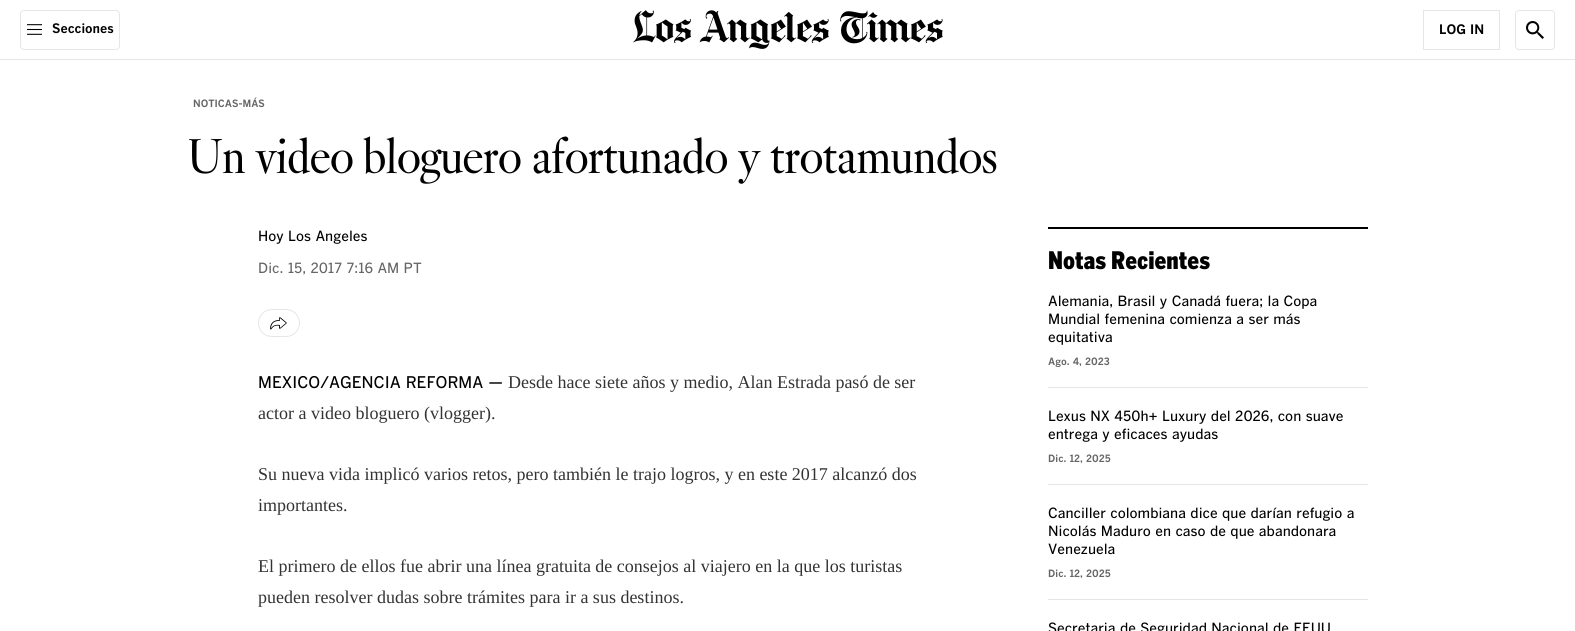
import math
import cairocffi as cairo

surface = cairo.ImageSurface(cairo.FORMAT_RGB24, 1575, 631)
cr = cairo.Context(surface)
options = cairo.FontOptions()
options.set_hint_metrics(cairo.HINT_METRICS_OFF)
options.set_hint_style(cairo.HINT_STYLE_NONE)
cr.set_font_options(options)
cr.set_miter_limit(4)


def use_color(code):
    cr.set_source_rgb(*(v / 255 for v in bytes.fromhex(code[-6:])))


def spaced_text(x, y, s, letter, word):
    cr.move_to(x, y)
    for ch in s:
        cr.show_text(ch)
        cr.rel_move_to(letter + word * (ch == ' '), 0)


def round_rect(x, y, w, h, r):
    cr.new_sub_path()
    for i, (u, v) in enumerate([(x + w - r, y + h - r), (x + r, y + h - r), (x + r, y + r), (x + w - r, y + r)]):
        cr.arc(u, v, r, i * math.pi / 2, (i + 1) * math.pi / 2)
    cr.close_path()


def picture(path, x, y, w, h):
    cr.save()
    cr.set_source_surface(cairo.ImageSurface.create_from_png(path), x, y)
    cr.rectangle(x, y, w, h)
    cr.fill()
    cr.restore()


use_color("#ffffff")
cr.paint()
use_color("#e6e6e6")
cr.rectangle(0, 59, 1575, 1)
cr.fill()
round_rect(20.5, 10.5, 99, 39, 3.5)
cr.set_line_width(1)
cr.stroke()
picture("img1.png", 27, 24, 15, 11)
cr.select_font_face("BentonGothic", cairo.FONT_SLANT_NORMAL, cairo.FONT_WEIGHT_BOLD)
cr.set_font_size(13)
use_color("#000000")
cr.move_to(52, 33)
cr.show_text("Secciones")
picture("img2.png", 633, 10, 310, 39)
cr.rectangle(1423.5, 10.5, 76, 39)
use_color("#e6e6e6")
cr.stroke()
use_color("#000000")
cr.move_to(1439, 34)
cr.show_text("LOG IN")
round_rect(1515.5, 10.5, 39, 39, 3.5)
use_color("#e6e6e6")
cr.stroke()
picture("img3.png", 1526, 21, 18, 18)
cr.set_font_size(10)
use_color("#666666")
cr.move_to(193, 107)
cr.show_text("NOTICAS-MÁS")
cr.select_font_face("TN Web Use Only")
cr.set_font_size(50)
use_color("#000000")
spaced_text(188, 173, "Un video bloguero afortunado y trotamundos", -0.2, 0)
cr.select_font_face("BentonGothic Medium")
cr.set_font_size(14)
cr.move_to(258, 241)
cr.show_text("Hoy Los Angeles")
use_color("#666666")
cr.move_to(258, 273)
cr.show_text("Dic. 15, 2017 7:16 AM PT")
round_rect(258.5, 309.5, 41, 27, 13.5)
use_color("#e6e6e6")
cr.stroke()
picture("img4.png", 270, 317, 17, 13)
cr.set_font_size(16)
use_color("#000000")
cr.move_to(258, 388)
cr.show_text("MEXICO/AGENCIA REFORMA —")
cr.select_font_face("Liberation Serif")
cr.set_font_size(18)
use_color("#333333")
cr.move_to(508, 388)
cr.show_text("Desde hace siete años y medio, Alan Estrada pasó de ser")
cr.move_to(258, 419)
cr.show_text("actor a video bloguero (vlogger).")
cr.move_to(258, 480)
cr.show_text("Su nueva vida implicó varios retos, pero también le trajo logros, y en este 2017 alcanzó dos")
cr.move_to(258, 511)
cr.show_text("importantes.")
cr.move_to(258, 572)
cr.show_text("El primero de ellos fue abrir una línea gratuita de consejos al viajero en la que los turistas")
cr.move_to(258, 603)
cr.show_text("pueden resolver dudas sobre trámites para ir a sus destinos.")
use_color("#000000")
cr.rectangle(1048, 227, 320, 2)
cr.fill()
cr.select_font_face("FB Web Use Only")
cr.set_font_size(24)
cr.move_to(1048, 269)
cr.show_text("Notas Recientes")
use_color("#e6e6e6")
cr.rectangle(1048, 387, 320, 1)
cr.fill()
cr.select_font_face("BentonGothic Medium")
cr.set_font_size(14)
use_color("#000000")
cr.move_to(1048, 306)
cr.show_text("Alemania, Brasil y Canadá fuera; la Copa")
cr.move_to(1048, 324)
cr.show_text("Mundial femenina comienza a ser más")
cr.move_to(1048, 342)
cr.show_text("equitativa")
cr.select_font_face("BentonGothic", cairo.FONT_SLANT_NORMAL, cairo.FONT_WEIGHT_BOLD)
cr.set_font_size(10)
use_color("#666666")
cr.move_to(1048, 365)
cr.show_text("Ago. 4, 2023")
use_color("#e6e6e6")
cr.rectangle(1048, 484, 320, 1)
cr.fill()
cr.select_font_face("BentonGothic Medium")
cr.set_font_size(14)
use_color("#000000")
cr.move_to(1048, 421)
cr.show_text("Lexus NX 450h+ Luxury del 2026, con suave")
cr.move_to(1048, 439)
cr.show_text("entrega y eficaces ayudas")
cr.select_font_face("BentonGothic", cairo.FONT_SLANT_NORMAL, cairo.FONT_WEIGHT_BOLD)
cr.set_font_size(10)
use_color("#666666")
cr.move_to(1048, 462)
cr.show_text("Dic. 12, 2025")
use_color("#e6e6e6")
cr.rectangle(1048, 599, 320, 1)
cr.fill()
cr.select_font_face("BentonGothic Medium")
cr.set_font_size(14)
use_color("#000000")
cr.move_to(1048, 518)
cr.show_text("Canciller colombiana dice que darían refugio a")
cr.move_to(1048, 536)
cr.show_text("Nicolás Maduro en caso de que abandonara")
cr.move_to(1048, 554)
cr.show_text("Venezuela")
cr.select_font_face("BentonGothic", cairo.FONT_SLANT_NORMAL, cairo.FONT_WEIGHT_BOLD)
cr.set_font_size(10)
use_color("#666666")
cr.move_to(1048, 577)
cr.show_text("Dic. 12, 2025")
cr.select_font_face("BentonGothic Medium")
cr.set_font_size(14)
use_color("#000000")
cr.move_to(1048, 633)
cr.show_text("Secretaria de Seguridad Nacional de EEUU")
surface.write_to_png("result.png")
